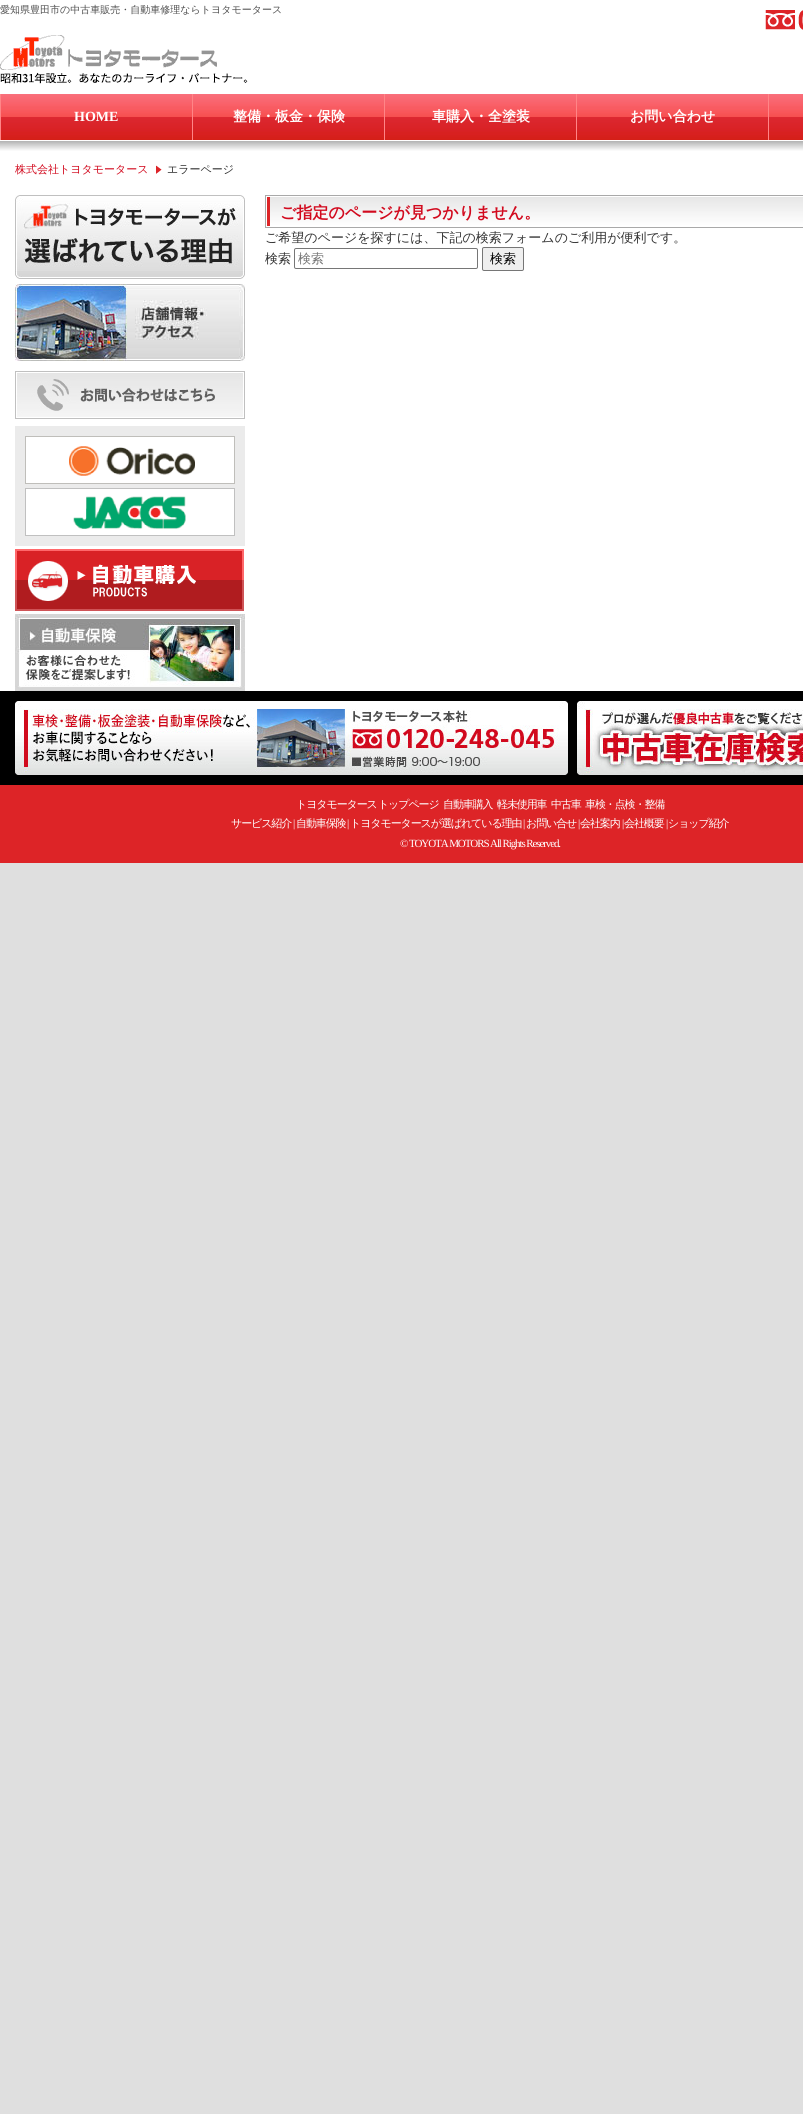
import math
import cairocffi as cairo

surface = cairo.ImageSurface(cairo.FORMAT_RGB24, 803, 2114)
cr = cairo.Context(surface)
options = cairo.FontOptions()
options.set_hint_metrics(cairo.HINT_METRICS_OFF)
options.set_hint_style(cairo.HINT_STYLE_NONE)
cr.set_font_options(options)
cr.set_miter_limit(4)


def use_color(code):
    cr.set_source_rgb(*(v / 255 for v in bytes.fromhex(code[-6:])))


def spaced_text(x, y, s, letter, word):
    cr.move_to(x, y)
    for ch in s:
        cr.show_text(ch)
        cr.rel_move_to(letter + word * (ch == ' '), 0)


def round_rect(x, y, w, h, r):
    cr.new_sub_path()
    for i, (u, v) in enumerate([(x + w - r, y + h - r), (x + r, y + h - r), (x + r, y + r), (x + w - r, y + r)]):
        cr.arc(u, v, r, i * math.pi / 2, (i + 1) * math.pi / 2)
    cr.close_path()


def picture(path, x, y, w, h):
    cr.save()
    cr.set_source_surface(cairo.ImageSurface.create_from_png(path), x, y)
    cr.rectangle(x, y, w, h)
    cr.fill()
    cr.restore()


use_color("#dfdfdf")
cr.paint()
picture("img1.png", 0, 0, 803, 140)
cr.select_font_face("WenQuanYi Zen Hei Medium")
cr.set_font_size(10)
use_color("#4d4d4d")
cr.move_to(0, 13)
cr.show_text("愛知県豊田市の中古車販売・自動車修理ならトヨタモータース")
picture("img2.png", 0, 35, 248, 49)
picture("img3.png", 765, 10, 38, 20)
use_color("#ff8587")
cr.rectangle(0, 94, 1, 46)
cr.fill()
cr.select_font_face("Liberation Serif", cairo.FONT_SLANT_NORMAL, cairo.FONT_WEIGHT_BOLD)
cr.set_font_size(14)
use_color("#ffffff")
cr.move_to(74, 121)
cr.show_text("HOME")
use_color("#ff8587")
cr.rectangle(192, 94, 1, 46)
cr.fill()
cr.select_font_face("WenQuanYi Zen Hei", cairo.FONT_SLANT_NORMAL, cairo.FONT_WEIGHT_BOLD)
use_color("#ffffff")
cr.move_to(233, 121)
cr.show_text("整備・板金・保険")
use_color("#ff8587")
cr.rectangle(384, 94, 1, 46)
cr.fill()
use_color("#ffffff")
cr.move_to(432, 121)
cr.show_text("車購入・全塗装")
use_color("#ff8587")
cr.rectangle(576, 94, 1, 46)
cr.fill()
use_color("#ffffff")
cr.move_to(630, 121)
cr.show_text("お問い合わせ")
use_color("#ff8587")
cr.rectangle(768, 94, 1, 46)
cr.fill()
use_color("#ffffff")
cr.rectangle(0, 140, 803, 551)
cr.fill()
picture("img4.png", 0, 141, 803, 10)
cr.select_font_face("WenQuanYi Zen Hei Medium")
cr.set_font_size(11)
use_color("#d20a1e")
cr.move_to(15, 173)
cr.show_text("株式会社トヨタモータース")
picture("img5.png", 156, 165, 6, 9)
use_color("#333333")
cr.move_to(167, 173)
cr.show_text("エラーページ")
picture("img6.png", 15, 195, 230, 84)
picture("img7.png", 15, 284, 230, 77)
picture("img8.png", 15, 371, 230, 48)
use_color("#ebebeb")
cr.rectangle(15, 426, 230, 120)
cr.fill()
picture("img9.png", 25, 436, 210, 48)
picture("img10.png", 25, 488, 210, 48)
picture("img11.png", 15, 549, 229, 62)
picture("img12.png", 15, 614, 230, 77)
picture("img13.png", 265, 195, 538, 33)
cr.select_font_face("WenQuanYi Zen Hei", cairo.FONT_SLANT_NORMAL, cairo.FONT_WEIGHT_BOLD)
cr.set_font_size(16)
use_color("#d20a1e")
cr.move_to(280, 218)
cr.show_text("ご指定のページが見つかりません。")
cr.select_font_face("WenQuanYi Zen Hei Medium")
cr.set_font_size(13)
use_color("#333333")
cr.move_to(265, 242)
cr.show_text("ご希望のページを探すには、下記の検索フォームのご利用が便利です。")
cr.move_to(265, 263)
cr.show_text("検索")
round_rect(294.5, 248.5, 183, 20, 1.5)
use_color("#767676")
cr.set_line_width(1)
cr.stroke()
use_color("#757575")
cr.move_to(298, 263)
cr.show_text("検索")
use_color("#efefef")
round_rect(482.5, 247.5, 41, 23, 1.5)
cr.fill_preserve()
use_color("#767676")
cr.stroke()
use_color("#000000")
cr.move_to(490, 263)
cr.show_text("検索")
cr.rectangle(0, 691, 803, 94)
cr.fill()
picture("img14.png", 15, 701, 553, 74)
picture("img15.png", 577, 701, 226, 74)
use_color("#dd2427")
cr.rectangle(0, 785, 803, 78)
cr.fill()
cr.set_font_size(11)
use_color("#ffffff")
spaced_text(296, 808, "トヨタモータース トップページ", -1.1, -1)
spaced_text(443, 808, "自動車購入", -1.1, 0)
spaced_text(497, 808, "軽未使用車", -1.1, 0)
spaced_text(551, 808, "中古車", -1.1, 0)
spaced_text(585, 808, "車検・点検・整備", -1.1, 0)
spaced_text(231, 827, "サービス紹介", -1.1, 0)
cr.select_font_face("Liberation Serif")
spaced_text(293, 827, "|", -1.1, 0)
cr.select_font_face("WenQuanYi Zen Hei Medium")
spaced_text(296, 827, "自動車保険", -1.1, 0)
cr.select_font_face("Liberation Serif")
spaced_text(347, 827, "|", -1.1, 0)
cr.select_font_face("WenQuanYi Zen Hei Medium")
spaced_text(350, 827, "トヨタモータースが選ばれている理由", -1.1, 0)
cr.select_font_face("Liberation Serif")
spaced_text(523, 827, "|", -1.1, 0)
cr.select_font_face("WenQuanYi Zen Hei Medium")
spaced_text(526, 827, "お問い合せ", -1.1, 0)
cr.select_font_face("Liberation Serif")
spaced_text(578, 827, "|", -1.1, 0)
cr.select_font_face("WenQuanYi Zen Hei Medium")
spaced_text(580, 827, "会社案内", -1.1, 0)
cr.select_font_face("Liberation Serif")
spaced_text(622, 827, "|", -1.1, 0)
cr.select_font_face("WenQuanYi Zen Hei Medium")
spaced_text(624, 827, "会社概要", -1.1, 0)
cr.select_font_face("Liberation Serif")
spaced_text(666, 827, "|", -1.1, 0)
cr.select_font_face("WenQuanYi Zen Hei Medium")
spaced_text(668, 827, "ショップ紹介", -1.1, 0)
cr.select_font_face("Liberation Serif")
spaced_text(400, 847, "© TOYOTA MOTORS All Rights Reserved.", -1.1, 0)
surface.write_to_png("result.png")
